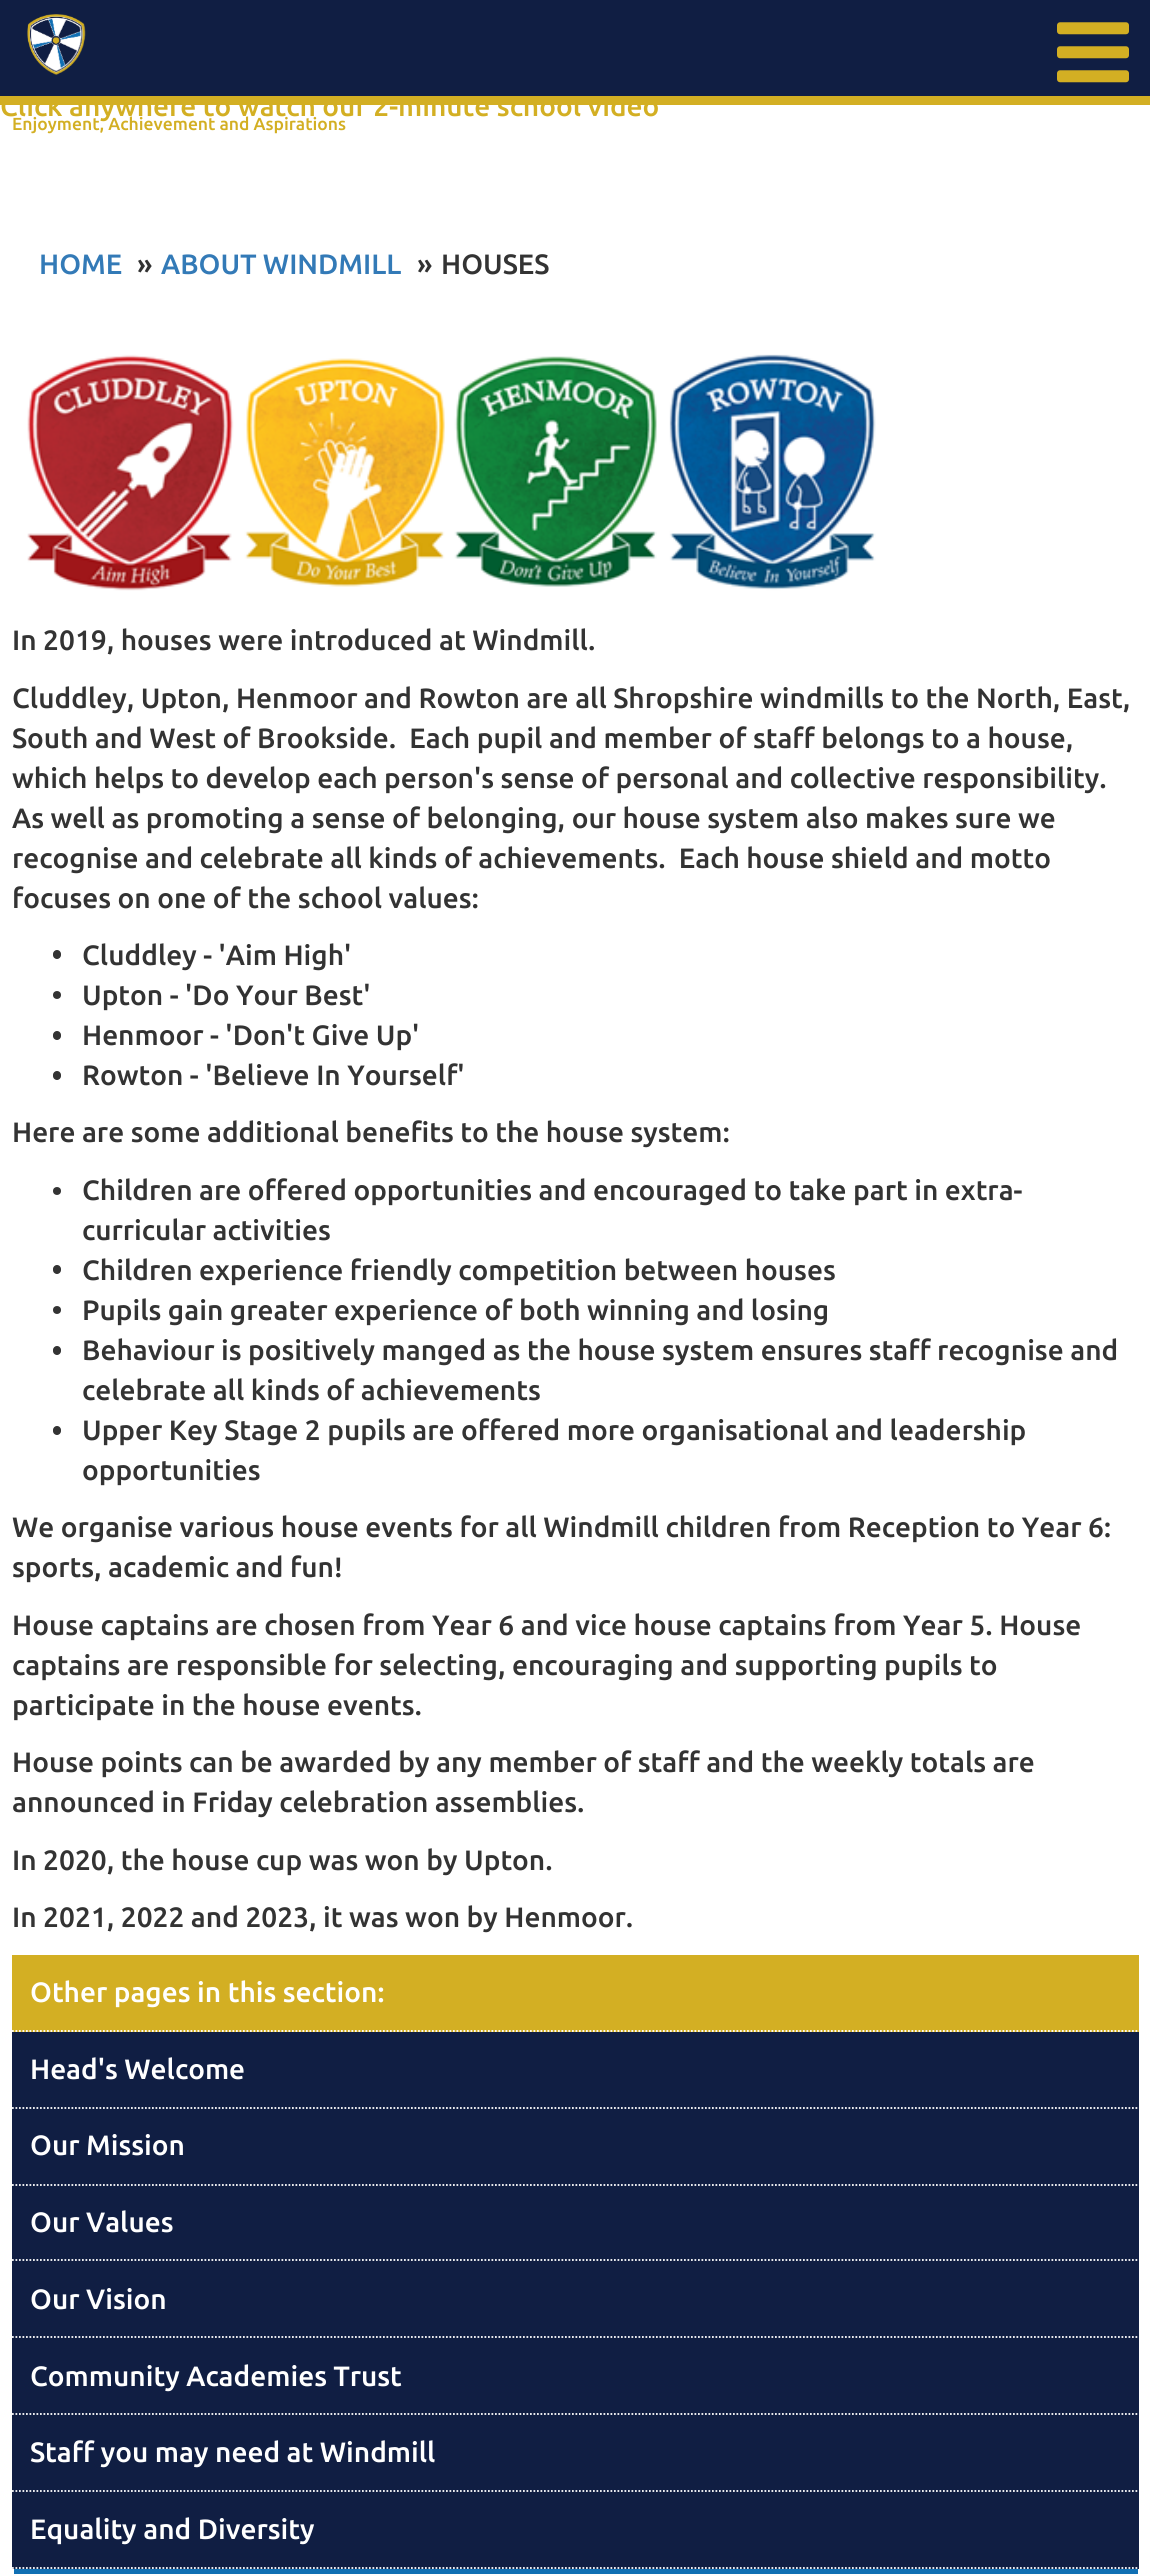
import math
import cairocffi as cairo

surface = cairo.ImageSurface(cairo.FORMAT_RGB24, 1150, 2574)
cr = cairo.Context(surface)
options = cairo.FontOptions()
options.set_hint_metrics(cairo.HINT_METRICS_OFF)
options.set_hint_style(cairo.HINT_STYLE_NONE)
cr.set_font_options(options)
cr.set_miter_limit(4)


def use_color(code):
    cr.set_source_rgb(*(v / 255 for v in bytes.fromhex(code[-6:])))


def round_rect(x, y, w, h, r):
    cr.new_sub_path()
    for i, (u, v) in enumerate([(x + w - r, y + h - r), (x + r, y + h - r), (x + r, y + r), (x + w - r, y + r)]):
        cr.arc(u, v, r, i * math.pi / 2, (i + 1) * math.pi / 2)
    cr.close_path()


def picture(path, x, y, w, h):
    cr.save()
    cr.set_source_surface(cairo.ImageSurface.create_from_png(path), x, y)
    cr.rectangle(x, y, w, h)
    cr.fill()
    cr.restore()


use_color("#ffffff")
cr.paint()
cr.select_font_face("Ubuntu Medium")
cr.set_font_size(28)
use_color("#d3af23")
cr.move_to(0, 116)
cr.show_text("Click anywhere to watch our 2-minute school video")
use_color("#101e43")
cr.rectangle(0, 0, 1150, 96)
cr.fill()
picture("img1.png", 1057, 22, 72, 61)
use_color("#d3af23")
cr.rectangle(0, 96, 1150, 9)
cr.fill()
picture("img2.png", 27, 14, 59, 61)
cr.set_font_size(17.5)
cr.move_to(12, 130)
cr.show_text("Enjoyment, Achievement and Aspirations")
cr.set_font_size(28)
use_color("#337ab7")
cr.move_to(39, 274)
cr.show_text("HOME")
use_color("#333333")
cr.move_to(137, 274)
cr.show_text("»")
use_color("#337ab7")
cr.move_to(161, 274)
cr.show_text("ABOUT WINDMILL")
use_color("#333333")
cr.move_to(417, 274)
cr.show_text("»")
cr.move_to(441, 274)
cr.show_text("HOUSES")
picture("img3.png", 27, 354, 849, 237)
cr.move_to(12, 650)
cr.show_text("In 2019, houses were introduced at Windmill.")
cr.move_to(12, 708)
cr.show_text("Cluddley, Upton, Henmoor and Rowton are all Shropshire windmills to the North, East,")
cr.move_to(12, 748)
cr.show_text("South and West of Brookside.  Each pupil and member of staff belongs to a house,")
cr.move_to(12, 788)
cr.show_text("which helps to develop each person's sense of personal and collective responsibility.")
cr.move_to(12, 828)
cr.show_text("As well as promoting a sense of belonging, our house system also makes sure we")
cr.move_to(12, 868)
cr.show_text("recognise and celebrate all kinds of achievements.  Each house shield and motto")
cr.move_to(12, 908)
cr.show_text("focuses on one of the school values:")
round_rect(53, 950, 8, 9, 4)
cr.fill()
cr.move_to(82, 965)
cr.show_text("Cluddley - 'Aim High'")
cr.new_path()
cr.arc(57, 995, 4, 0, 2 * math.pi)
cr.fill()
cr.move_to(82, 1005)
cr.show_text("Upton - 'Do Your Best'")
round_rect(53, 1031, 8, 9, 4)
cr.fill()
cr.move_to(82, 1045)
cr.show_text("Henmoor - 'Don't Give Up'")
round_rect(53, 1071, 8, 9, 4)
cr.fill()
cr.move_to(82, 1085)
cr.show_text("Rowton - 'Believe In Yourself'")
cr.move_to(12, 1142)
cr.show_text("Here are some additional benefits to the house system:")
cr.new_path()
cr.arc(57, 1191, 4, 0, 2 * math.pi)
cr.fill()
cr.move_to(82, 1200)
cr.show_text("Children are offered opportunities and encouraged to take part in extra-")
cr.move_to(82, 1240)
cr.show_text("curricular activities")
round_rect(53, 1265, 8, 9, 4)
cr.fill()
cr.move_to(82, 1280)
cr.show_text("Children experience friendly competition between houses")
cr.new_path()
cr.arc(57, 1310, 4, 0, 2 * math.pi)
cr.fill()
cr.move_to(82, 1320)
cr.show_text("Pupils gain greater experience of both winning and losing")
round_rect(53, 1346, 8, 9, 4)
cr.fill()
cr.move_to(82, 1360)
cr.show_text("Behaviour is positively manged as the house system ensures staff recognise and")
cr.move_to(82, 1400)
cr.show_text("celebrate all kinds of achievements")
round_rect(53, 1426, 8, 9, 4)
cr.fill()
cr.move_to(82, 1440)
cr.show_text("Upper Key Stage 2 pupils are offered more organisational and leadership")
cr.move_to(82, 1480)
cr.show_text("opportunities")
cr.move_to(12, 1537)
cr.show_text("We organise various house events for all Windmill children from Reception to Year 6:")
cr.move_to(12, 1577)
cr.show_text("sports, academic and fun!")
cr.move_to(12, 1635)
cr.show_text("House captains are chosen from Year 6 and vice house captains from Year 5. House")
cr.move_to(12, 1675)
cr.show_text("captains are responsible for selecting, encouraging and supporting pupils to")
cr.move_to(12, 1715)
cr.show_text("participate in the house events.")
cr.move_to(12, 1772)
cr.show_text("House points can be awarded by any member of staff and the weekly totals are")
cr.move_to(12, 1812)
cr.show_text("announced in Friday celebration assemblies.")
cr.move_to(12, 1870)
cr.show_text("In 2020, the house cup was won by Upton.")
cr.move_to(12, 1927)
cr.show_text("In 2021, 2022 and 2023, it was won by Henmoor.")
use_color("#d3af23")
cr.rectangle(12, 1955, 1127, 77)
cr.fill()
cr.new_path()
cr.move_to(12, 2031)
cr.line_to(1139, 2031)
use_color("#ffffff")
cr.set_line_width(1.8)
cr.set_dash([1.75, 1.75])
cr.stroke()
cr.move_to(30, 2002)
cr.show_text("Other pages in this section:")
use_color("#101e43")
cr.rectangle(12, 2032, 1127, 537)
cr.fill()
cr.new_path()
cr.move_to(12, 2108)
cr.line_to(1139, 2108)
use_color("#ffffff")
cr.stroke()
cr.move_to(30, 2079)
cr.show_text("Head's Welcome")
cr.new_path()
cr.move_to(12, 2185)
cr.line_to(1139, 2185)
cr.stroke()
cr.move_to(30, 2155)
cr.show_text("Our Mission")
cr.new_path()
cr.move_to(12, 2260)
cr.line_to(1139, 2260)
cr.stroke()
cr.move_to(30, 2232)
cr.show_text("Our Values")
cr.new_path()
cr.move_to(12, 2337)
cr.line_to(1139, 2337)
cr.stroke()
cr.move_to(30, 2309)
cr.show_text("Our Vision")
cr.new_path()
cr.move_to(12, 2414)
cr.line_to(1139, 2414)
cr.stroke()
cr.move_to(30, 2386)
cr.show_text("Community Academies Trust")
cr.new_path()
cr.move_to(12, 2491)
cr.line_to(1139, 2491)
cr.stroke()
cr.move_to(30, 2462)
cr.show_text("Staff you may need at Windmill")
cr.new_path()
cr.move_to(12, 2568)
cr.line_to(1139, 2568)
cr.stroke()
cr.move_to(30, 2539)
cr.show_text("Equality and Diversity")
use_color("#1170b4")
cr.rectangle(14, 2569, 1124, 5)
cr.fill()
surface.write_to_png("result.png")
